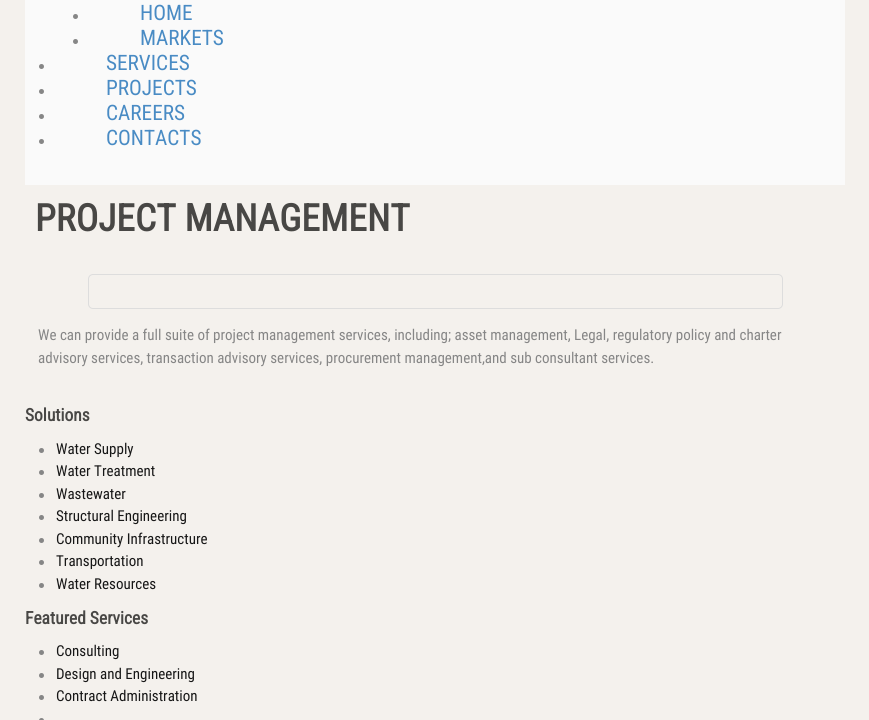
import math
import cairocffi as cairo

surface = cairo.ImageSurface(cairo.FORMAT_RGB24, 869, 720)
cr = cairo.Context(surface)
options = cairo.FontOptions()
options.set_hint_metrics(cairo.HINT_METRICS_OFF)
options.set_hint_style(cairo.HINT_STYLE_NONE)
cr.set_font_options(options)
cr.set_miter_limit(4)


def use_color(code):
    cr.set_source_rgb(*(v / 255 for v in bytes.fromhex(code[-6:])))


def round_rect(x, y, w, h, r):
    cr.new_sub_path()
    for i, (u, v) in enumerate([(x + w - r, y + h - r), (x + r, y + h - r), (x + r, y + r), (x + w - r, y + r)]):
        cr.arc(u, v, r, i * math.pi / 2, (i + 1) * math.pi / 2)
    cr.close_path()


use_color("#f4f1ed")
cr.paint()
use_color("#fafafa")
cr.rectangle(25, 0, 820, 185)
cr.fill()
use_color("#868686")
cr.arc(75.5, 16.5, 2.5, 0, 2 * math.pi)
cr.fill()
cr.select_font_face("Roboto Condensed")
cr.set_font_size(21.25)
use_color("#498bc4")
cr.move_to(140, 20)
cr.show_text("HOME")
use_color("#868686")
cr.new_path()
cr.arc(75.5, 41.5, 2.5, 0, 2 * math.pi)
cr.fill()
use_color("#498bc4")
cr.move_to(140, 45)
cr.show_text("MARKETS")
use_color("#868686")
cr.new_path()
cr.arc(41.5, 66.5, 2.5, 0, 2 * math.pi)
cr.fill()
use_color("#498bc4")
cr.move_to(106, 70)
cr.show_text("SERVICES")
use_color("#868686")
cr.new_path()
cr.arc(41.5, 91.5, 2.5, 0, 2 * math.pi)
cr.fill()
use_color("#498bc4")
cr.move_to(106, 95)
cr.show_text("PROJECTS")
use_color("#868686")
cr.new_path()
cr.arc(41.5, 116.5, 2.5, 0, 2 * math.pi)
cr.fill()
use_color("#498bc4")
cr.move_to(106, 120)
cr.show_text("CAREERS")
use_color("#868686")
cr.new_path()
cr.arc(41.5, 141.5, 2.5, 0, 2 * math.pi)
cr.fill()
use_color("#498bc4")
cr.move_to(106, 145)
cr.show_text("CONTACTS")
cr.select_font_face("Roboto Condensed", cairo.FONT_SLANT_NORMAL, cairo.FONT_WEIGHT_BOLD)
cr.set_font_size(37.5)
use_color("#484745")
cr.move_to(35, 231)
cr.show_text("PROJECT MANAGEMENT")
round_rect(88.5, 274.5, 694, 34, 4.5)
use_color("#dddddd")
cr.set_line_width(1)
cr.stroke()
cr.select_font_face("Roboto Condensed")
cr.set_font_size(15)
use_color("#868686")
cr.move_to(38, 340)
cr.show_text("We can provide a full suite of project management services, including; asset management, Legal, regulatory policy and charter")
cr.move_to(38, 363)
cr.show_text("advisory services, transaction advisory services, procurement management,and sub consultant services.")
cr.select_font_face("Roboto Condensed", cairo.FONT_SLANT_NORMAL, cairo.FONT_WEIGHT_BOLD)
cr.set_font_size(17.5)
use_color("#484745")
cr.move_to(25, 421)
cr.show_text("Solutions")
use_color("#868686")
cr.new_path()
cr.arc(41.5, 450.5, 2.5, 0, 2 * math.pi)
cr.fill()
cr.select_font_face("Roboto Condensed")
cr.set_font_size(15)
use_color("#171717")
cr.move_to(56, 454)
cr.show_text("Water Supply")
use_color("#868686")
cr.new_path()
cr.arc(41.5, 472.5, 2.5, 0, 2 * math.pi)
cr.fill()
use_color("#171717")
cr.move_to(56, 476)
cr.show_text("Water Treatment")
use_color("#868686")
cr.new_path()
cr.arc(41.5, 495.5, 2.5, 0, 2 * math.pi)
cr.fill()
use_color("#171717")
cr.move_to(56, 499)
cr.show_text("Wastewater")
use_color("#868686")
cr.new_path()
cr.arc(41.5, 517.5, 2.5, 0, 2 * math.pi)
cr.fill()
use_color("#171717")
cr.move_to(56, 521)
cr.show_text("Structural Engineering")
use_color("#868686")
cr.new_path()
cr.arc(41.5, 540.5, 2.5, 0, 2 * math.pi)
cr.fill()
use_color("#171717")
cr.move_to(56, 544)
cr.show_text("Community Infrastructure")
use_color("#868686")
cr.new_path()
cr.arc(41.5, 562.5, 2.5, 0, 2 * math.pi)
cr.fill()
use_color("#171717")
cr.move_to(56, 566)
cr.show_text("Transportation")
use_color("#868686")
cr.new_path()
cr.arc(41.5, 585.5, 2.5, 0, 2 * math.pi)
cr.fill()
use_color("#171717")
cr.move_to(56, 589)
cr.show_text("Water Resources")
cr.select_font_face("Roboto Condensed", cairo.FONT_SLANT_NORMAL, cairo.FONT_WEIGHT_BOLD)
cr.set_font_size(17.5)
use_color("#484745")
cr.move_to(25, 624)
cr.show_text("Featured Services")
use_color("#868686")
cr.new_path()
cr.arc(41.5, 652.5, 2.5, 0, 2 * math.pi)
cr.fill()
cr.select_font_face("Roboto Condensed")
cr.set_font_size(15)
use_color("#171717")
cr.move_to(56, 656)
cr.show_text("Consulting")
use_color("#868686")
cr.new_path()
cr.arc(41.5, 675.5, 2.5, 0, 2 * math.pi)
cr.fill()
use_color("#171717")
cr.move_to(56, 679)
cr.show_text("Design and Engineering")
use_color("#868686")
cr.new_path()
cr.arc(41.5, 697.5, 2.5, 0, 2 * math.pi)
cr.fill()
use_color("#171717")
cr.move_to(56, 701)
cr.show_text("Contract Administration")
use_color("#868686")
cr.new_path()
cr.arc(41.5, 720.5, 2.5, 0, 2 * math.pi)
cr.fill()
surface.write_to_png("result.png")
